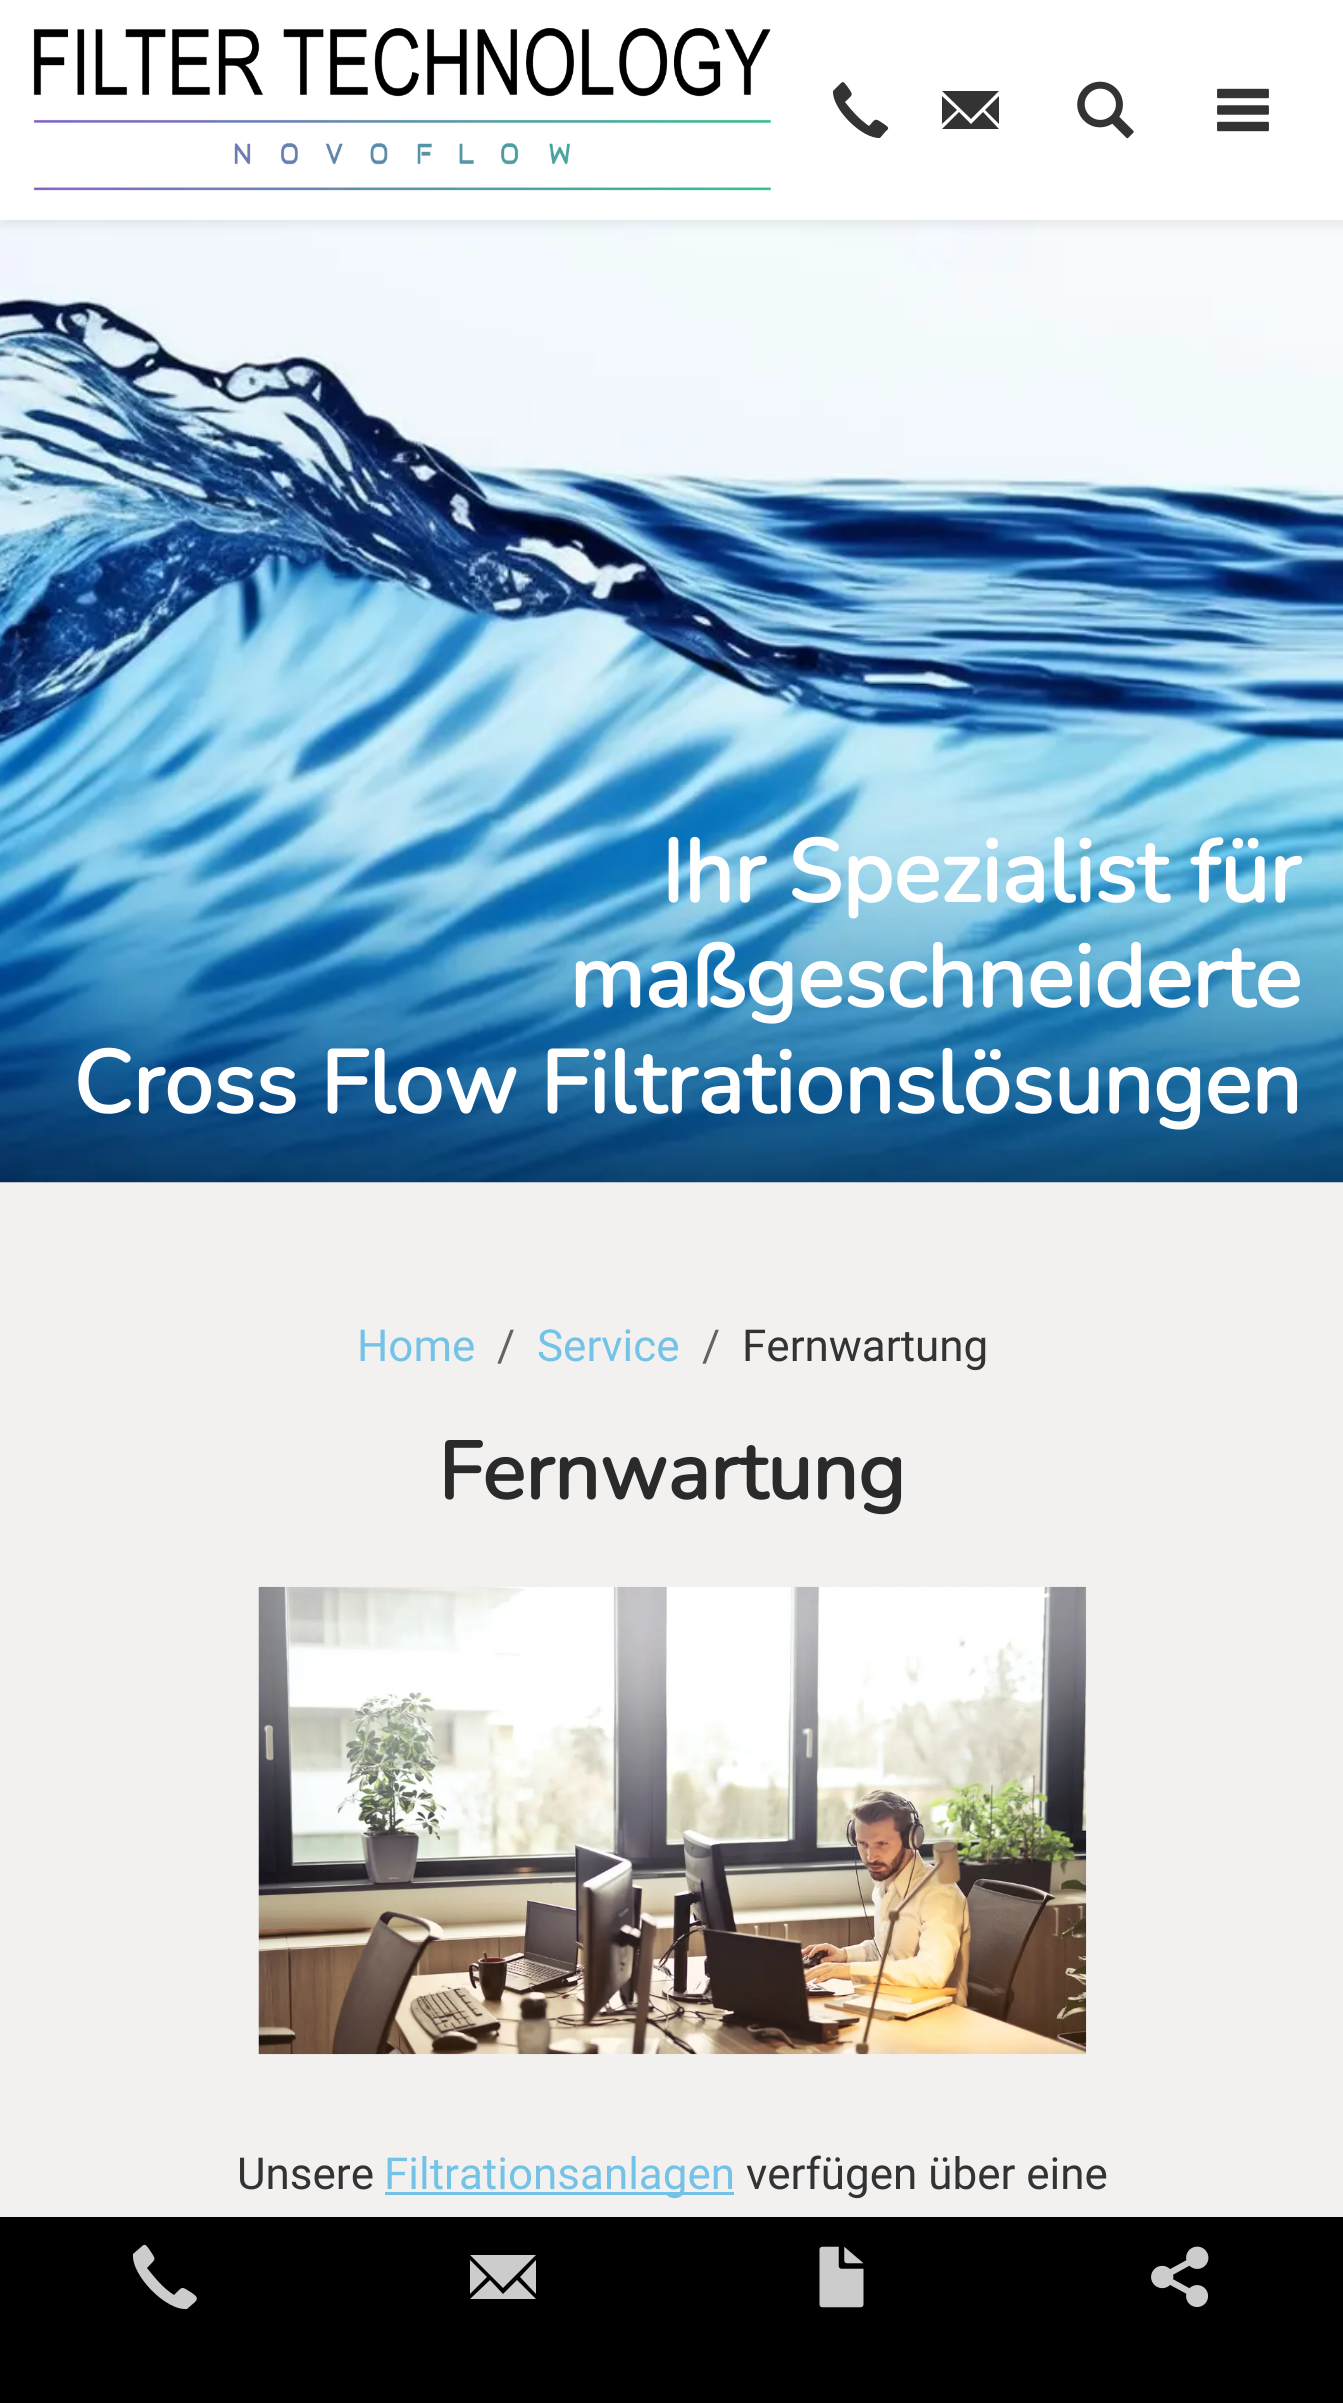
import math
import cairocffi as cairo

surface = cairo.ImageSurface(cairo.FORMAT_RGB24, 1343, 2403)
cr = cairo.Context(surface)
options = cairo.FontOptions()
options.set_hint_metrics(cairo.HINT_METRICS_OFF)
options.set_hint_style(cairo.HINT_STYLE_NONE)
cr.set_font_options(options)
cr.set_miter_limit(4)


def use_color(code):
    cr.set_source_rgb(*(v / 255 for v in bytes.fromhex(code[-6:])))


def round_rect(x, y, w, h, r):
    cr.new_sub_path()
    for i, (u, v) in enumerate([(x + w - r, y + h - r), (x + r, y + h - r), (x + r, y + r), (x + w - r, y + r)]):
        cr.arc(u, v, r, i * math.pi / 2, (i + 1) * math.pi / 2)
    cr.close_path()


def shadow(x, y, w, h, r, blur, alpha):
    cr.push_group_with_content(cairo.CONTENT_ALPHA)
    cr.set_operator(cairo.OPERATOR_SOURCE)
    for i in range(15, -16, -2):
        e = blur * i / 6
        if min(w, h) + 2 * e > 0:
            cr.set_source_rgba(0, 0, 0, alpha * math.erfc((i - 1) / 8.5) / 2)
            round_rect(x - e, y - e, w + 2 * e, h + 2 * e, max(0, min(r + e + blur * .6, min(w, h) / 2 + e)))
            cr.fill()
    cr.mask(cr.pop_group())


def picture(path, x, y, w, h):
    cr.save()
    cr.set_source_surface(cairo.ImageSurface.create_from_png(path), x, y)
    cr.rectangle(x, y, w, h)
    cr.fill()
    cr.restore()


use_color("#f3f1f0")
cr.paint()
picture("img4.png", 0, 220, 1343, 963)
use_color("#000000")
shadow(0, 6, 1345, 220, 0, 5.5, 0.07)
use_color("#ffffff")
cr.rectangle(0, 0, 1343, 220)
cr.fill()
picture("img1.png", 33, 28, 738, 163)
use_color("#333333")
cr.new_path()
cr.move_to(833, 91)
cr.line_to(840, 84)
cr.curve_to(844, 80, 844, 83, 847, 86)
cr.curve_to(854, 96, 853, 94, 845, 102)
cr.curve_to(852, 111, 859, 119, 869, 126)
cr.curve_to(876, 118, 875, 118, 884, 124)
cr.curve_to(888, 127, 890, 128, 886, 131)
cr.line_to(880, 138)
cr.curve_to(862, 139, 832, 109, 833, 91)
cr.close_path()
cr.fill()
cr.new_path()
cr.move_to(942, 96)
cr.line_to(942, 124)
cr.line_to(957, 110)
cr.close_path()
cr.move_to(985, 110)
cr.line_to(999, 124)
cr.line_to(999, 96)
cr.close_path()
cr.move_to(983, 112)
cr.line_to(971, 124)
cr.line_to(959, 112)
cr.line_to(942, 129)
cr.line_to(999, 129)
cr.close_path()
cr.move_to(942, 91)
cr.line_to(971, 119)
cr.line_to(999, 91)
cr.close_path()
cr.fill()
picture("img2.png", 1077, 81, 57, 58)
picture("img3.png", 1217, 88, 52, 44)
cr.select_font_face("Nunito", cairo.FONT_SLANT_NORMAL, cairo.FONT_WEIGHT_BOLD)
cr.set_font_size(88)
use_color("#ffffff")
cr.move_to(661, 902)
cr.show_text("Ihr Spezialist für")
cr.move_to(569, 1007)
cr.show_text("maßgeschneiderte")
cr.move_to(73, 1113)
cr.show_text("Cross Flow Filtrationslösungen")
cr.select_font_face("Roboto")
cr.set_font_size(44)
use_color("#74c2e5")
cr.move_to(357, 1361)
cr.show_text("Home")
use_color("#636362")
cr.move_to(497, 1361)
cr.show_text("/")
use_color("#74c2e5")
cr.move_to(537, 1361)
cr.show_text("Service")
use_color("#636362")
cr.move_to(702, 1361)
cr.show_text("/")
use_color("#333333")
cr.move_to(742, 1361)
cr.show_text("Fernwartung")
cr.select_font_face("Nunito", cairo.FONT_SLANT_NORMAL, cairo.FONT_WEIGHT_BOLD)
cr.set_font_size(80.5)
use_color("#2a2a2a")
cr.move_to(438, 1499)
cr.show_text("Fernwartung")
picture("img5.png", 258, 1586, 829, 469)
cr.select_font_face("Roboto")
cr.set_font_size(44)
use_color("#333333")
cr.move_to(237, 2189)
cr.show_text("Unsere")
use_color("#74c2e5")
cr.rectangle(385, 2192, 349, 3)
cr.fill()
cr.move_to(384, 2189)
cr.show_text("Filtrationsanlagen")
use_color("#333333")
cr.move_to(746, 2189)
cr.show_text("verfügen über eine")
use_color("#000000")
cr.rectangle(0, 2217, 1343, 186)
cr.fill()
use_color("#cccccc")
cr.new_path()
cr.move_to(133, 2254)
cr.line_to(141, 2247)
cr.curve_to(145, 2243, 146, 2245, 149, 2249)
cr.curve_to(157, 2261, 156, 2258, 147, 2268)
cr.curve_to(155, 2278, 163, 2288, 174, 2295)
cr.curve_to(183, 2286, 181, 2286, 192, 2293)
cr.curve_to(196, 2296, 199, 2298, 195, 2302)
cr.line_to(187, 2309)
cr.curve_to(166, 2311, 131, 2275, 133, 2254)
cr.close_path()
cr.fill()
cr.new_path()
cr.move_to(470, 2260)
cr.line_to(470, 2294)
cr.line_to(487, 2277)
cr.close_path()
cr.move_to(520, 2277)
cr.line_to(536, 2294)
cr.line_to(536, 2260)
cr.close_path()
cr.move_to(517, 2280)
cr.line_to(503, 2294)
cr.line_to(490, 2280)
cr.line_to(470, 2299)
cr.line_to(536, 2299)
cr.close_path()
cr.move_to(470, 2255)
cr.line_to(503, 2288)
cr.line_to(536, 2255)
cr.close_path()
cr.fill()
picture("img6.png", 819, 2246, 45, 62)
picture("img7.png", 1151, 2246, 58, 61)
surface.write_to_png("result.png")
